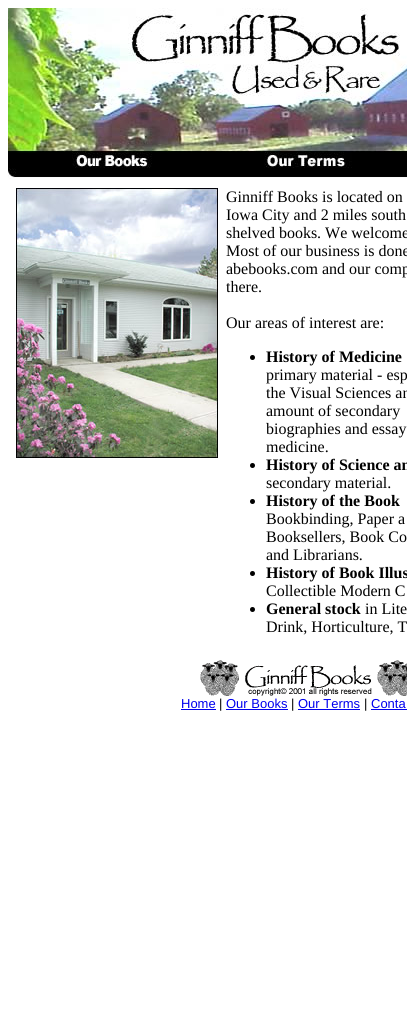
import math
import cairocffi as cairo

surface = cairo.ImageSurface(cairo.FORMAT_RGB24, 407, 1028)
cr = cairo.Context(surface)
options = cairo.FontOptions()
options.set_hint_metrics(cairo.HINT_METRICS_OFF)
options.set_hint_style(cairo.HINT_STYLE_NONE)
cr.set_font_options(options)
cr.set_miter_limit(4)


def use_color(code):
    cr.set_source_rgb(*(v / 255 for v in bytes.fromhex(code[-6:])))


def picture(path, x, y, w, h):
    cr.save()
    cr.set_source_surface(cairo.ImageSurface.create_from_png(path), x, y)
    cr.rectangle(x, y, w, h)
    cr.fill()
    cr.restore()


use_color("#ffffff")
cr.paint()
picture("img1.png", 8, 8, 399, 171)
picture("img2.png", 16, 188, 202, 270)
cr.select_font_face("Liberation Serif")
cr.set_font_size(16)
use_color("#000000")
cr.move_to(226, 202)
cr.show_text("Ginniff Books is located on")
cr.move_to(226, 220)
cr.show_text("Iowa City and 2 miles south")
cr.move_to(226, 238)
cr.show_text("shelved books. We welcome")
cr.move_to(226, 256)
cr.show_text("Most of our business is done")
cr.move_to(226, 274)
cr.show_text("abebooks.com and our comp")
cr.move_to(226, 292)
cr.show_text("there.")
cr.move_to(226, 328)
cr.show_text("Our areas of interest are:")
cr.new_path()
cr.arc(252.5, 357.5, 2.5, 0, 2 * math.pi)
cr.fill()
cr.select_font_face("Liberation Serif", cairo.FONT_SLANT_NORMAL, cairo.FONT_WEIGHT_BOLD)
cr.move_to(266, 362)
cr.show_text("History of Medicine")
cr.select_font_face("Liberation Serif")
cr.move_to(266, 380)
cr.show_text("primary material - esp")
cr.move_to(266, 398)
cr.show_text("the Visual Sciences an")
cr.move_to(266, 416)
cr.show_text("amount of secondary")
cr.move_to(266, 434)
cr.show_text("biographies and essay")
cr.move_to(266, 452)
cr.show_text("medicine.")
cr.new_path()
cr.arc(252.5, 465.5, 2.5, 0, 2 * math.pi)
cr.fill()
cr.select_font_face("Liberation Serif", cairo.FONT_SLANT_NORMAL, cairo.FONT_WEIGHT_BOLD)
cr.move_to(266, 470)
cr.show_text("History of Science an")
cr.select_font_face("Liberation Serif")
cr.move_to(266, 488)
cr.show_text("secondary material.")
cr.new_path()
cr.arc(252.5, 501.5, 2.5, 0, 2 * math.pi)
cr.fill()
cr.select_font_face("Liberation Serif", cairo.FONT_SLANT_NORMAL, cairo.FONT_WEIGHT_BOLD)
cr.move_to(266, 506)
cr.show_text("History of the Book")
cr.select_font_face("Liberation Serif")
cr.move_to(266, 524)
cr.show_text("Bookbinding, Paper a")
cr.move_to(266, 542)
cr.show_text("Booksellers, Book Co")
cr.move_to(266, 560)
cr.show_text("and Librarians.")
cr.new_path()
cr.arc(252.5, 573.5, 2.5, 0, 2 * math.pi)
cr.fill()
cr.select_font_face("Liberation Serif", cairo.FONT_SLANT_NORMAL, cairo.FONT_WEIGHT_BOLD)
cr.move_to(266, 578)
cr.show_text("History of Book Illus")
cr.select_font_face("Liberation Serif")
cr.move_to(266, 596)
cr.show_text("Collectible Modern C")
cr.new_path()
cr.arc(252.5, 609.5, 2.5, 0, 2 * math.pi)
cr.fill()
cr.select_font_face("Liberation Serif", cairo.FONT_SLANT_NORMAL, cairo.FONT_WEIGHT_BOLD)
cr.move_to(266, 614)
cr.show_text("General stock")
cr.select_font_face("Liberation Serif")
cr.move_to(365, 614)
cr.show_text("in Lite")
cr.move_to(266, 632)
cr.show_text("Drink, Horticulture, T")
picture("img3.png", 200, 660, 207, 36)
cr.select_font_face("Liberation Sans")
cr.set_font_size(13)
use_color("#0000ee")
cr.move_to(181, 708)
cr.show_text("Home")
cr.rectangle(181, 709, 35, 1)
cr.fill()
use_color("#000000")
cr.move_to(219, 708)
cr.show_text("|")
use_color("#0000ee")
cr.move_to(226, 708)
cr.show_text("Our Books")
cr.rectangle(226, 709, 62, 1)
cr.fill()
use_color("#000000")
cr.move_to(291, 708)
cr.show_text("|")
use_color("#0000ee")
cr.move_to(298, 708)
cr.show_text("Our Terms")
cr.rectangle(298, 709, 62, 1)
cr.fill()
use_color("#000000")
cr.move_to(364, 708)
cr.show_text("|")
use_color("#0000ee")
cr.move_to(371, 708)
cr.show_text("Conta")
cr.rectangle(371, 709, 36, 1)
cr.fill()
surface.write_to_png("result.png")
